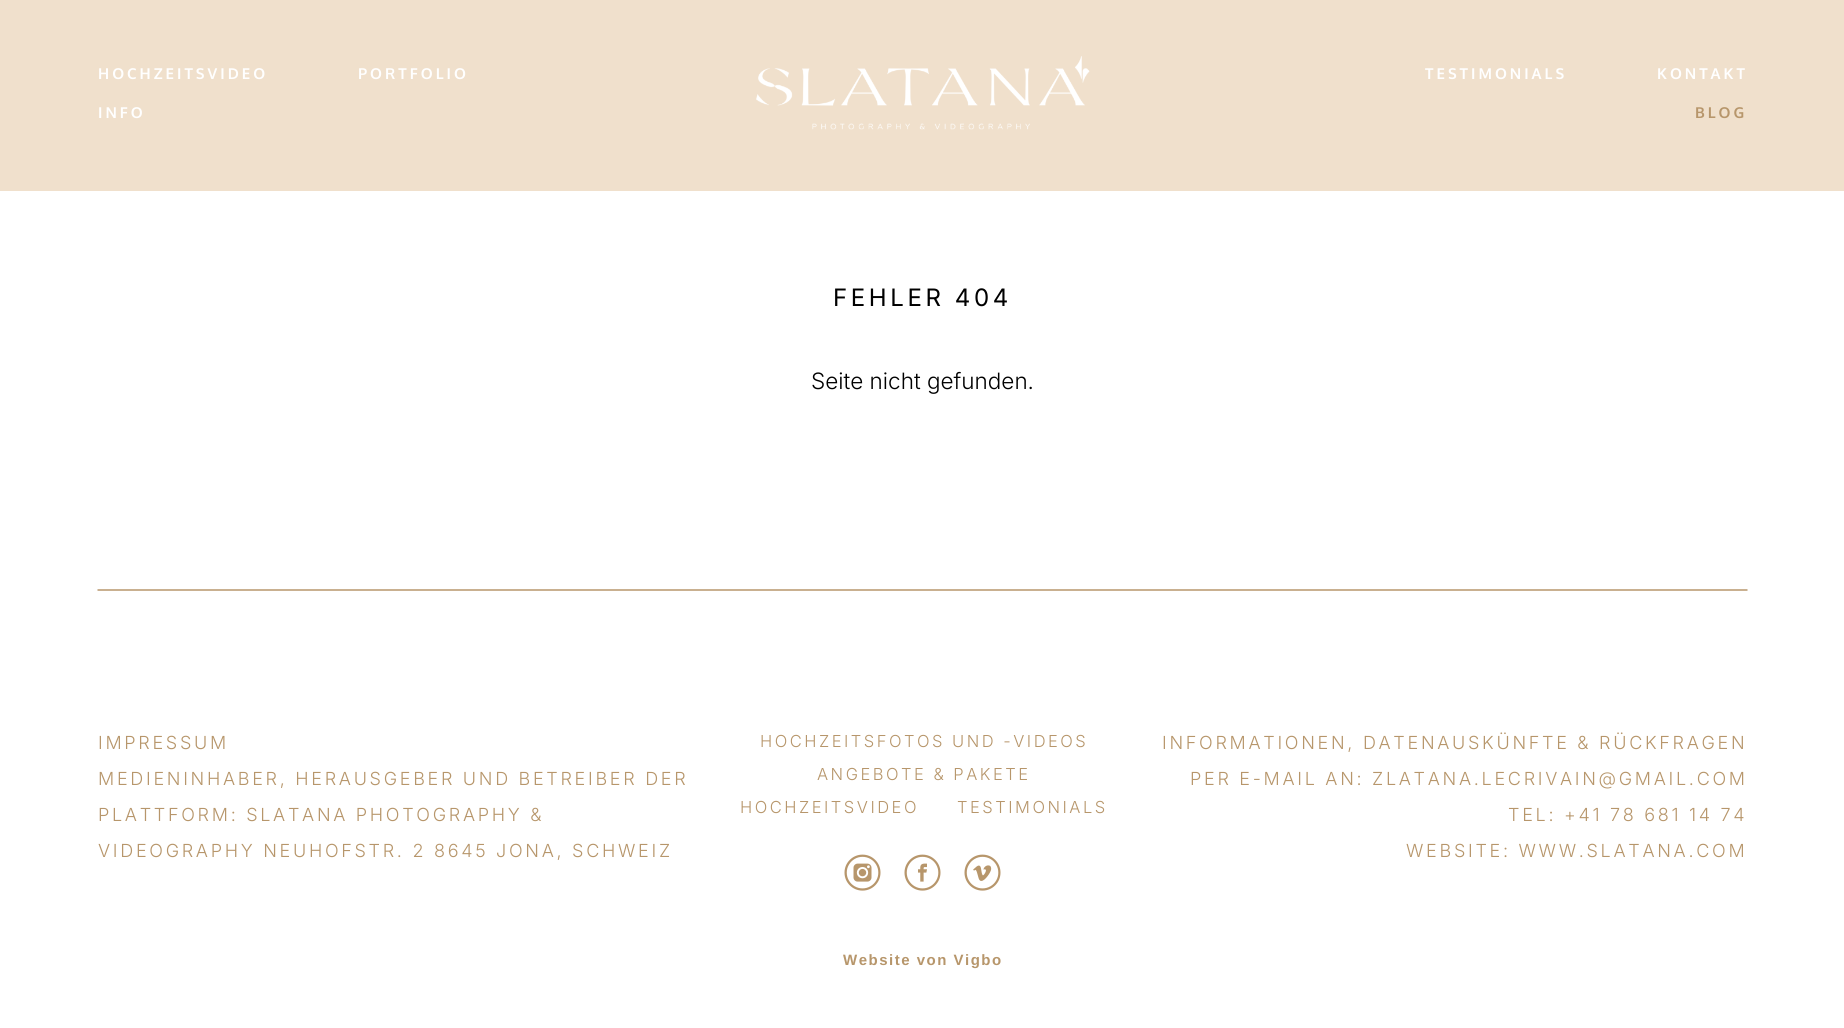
import math
import cairocffi as cairo

surface = cairo.ImageSurface(cairo.FORMAT_RGB24, 1844, 1028)
cr = cairo.Context(surface)
options = cairo.FontOptions()
options.set_hint_metrics(cairo.HINT_METRICS_OFF)
options.set_hint_style(cairo.HINT_STYLE_NONE)
cr.set_font_options(options)
cr.set_miter_limit(4)


def use_color(code):
    cr.set_source_rgb(*(v / 255 for v in bytes.fromhex(code[-6:])))


def spaced_text(x, y, s, letter, word):
    cr.move_to(x, y)
    for ch in s:
        cr.show_text(ch)
        cr.rel_move_to(letter + word * (ch == ' '), 0)


def picture(path, x, y, w, h):
    cr.save()
    cr.set_source_surface(cairo.ImageSurface.create_from_png(path), x, y)
    cr.rectangle(x, y, w, h)
    cr.fill()
    cr.restore()


use_color("#ffffff")
cr.paint()
use_color("#f0e0cc")
cr.rectangle(0, 0, 1844, 191)
cr.fill()
cr.select_font_face("Oxygen", cairo.FONT_SLANT_NORMAL, cairo.FONT_WEIGHT_BOLD)
cr.set_font_size(15)
use_color("#ffffff")
spaced_text(98, 79, "HOCHZEITSVIDEO", 3, 0)
spaced_text(358, 79, "PORTFOLIO", 3, 0)
spaced_text(98, 118, "INFO", 3, 0)
picture("img1.png", 756, 56, 334, 74)
spaced_text(1425, 79, "TESTIMONIALS", 3, 0)
spaced_text(1657, 79, "KONTAKT", 3, 0)
use_color("#b7966b")
spaced_text(1695, 118, "BLOG", 3, 0)
cr.select_font_face("Inter")
cr.set_font_size(24)
use_color("#000000")
spaced_text(833, 306, "FEHLER 404", 3.6, 0)
cr.select_font_face("Inter Light")
cr.set_font_size(22.5)
cr.move_to(811, 389)
cr.show_text("Seite nicht gefunden.")
picture("img2.png", 97, 589, 1651, 2)
cr.set_font_size(18)
use_color("#b7966b")
spaced_text(98, 749, "IMPRESSUM", 2.7, 0)
spaced_text(98, 785, "MEDIENINHABER, HERAUSGEBER UND BETREIBER DER", 2.7, 0)
spaced_text(98, 821, "PLATTFORM: SLATANA PHOTOGRAPHY &", 2.7, 0)
spaced_text(98, 857, "VIDEOGRAPHY NEUHOFSTR. 2 8645 JONA, SCHWEIZ", 2.7, 0)
cr.set_font_size(16.5)
spaced_text(760, 747, "HOCHZEITSFOTOS UND -VIDEOS", 2.5, 0)
spaced_text(817, 780, "ANGEBOTE & PAKETE", 2.5, 0)
spaced_text(740, 813, "HOCHZEITSVIDEO", 2.5, 0)
spaced_text(957, 813, "TESTIMONIALS", 2.5, 0)
picture("img3.png", 844, 854, 37, 37)
picture("img4.png", 904, 854, 37, 37)
picture("img5.png", 964, 854, 37, 37)
cr.set_font_size(18)
spaced_text(1162, 749, "INFORMATIONEN, DATENAUSKÜNFTE & RÜCKFRAGEN", 2.7, 0)
spaced_text(1190, 785, "PER E-MAIL AN: ZLATANA.LECRIVAIN@GMAIL.COM", 2.7, 0)
spaced_text(1508, 821, "TEL: +41 78 681 14 74", 2.7, 0)
spaced_text(1406, 857, "WEBSITE: WWW.SLATANA.COM", 2.7, 0)
cr.select_font_face("Liberation Sans", cairo.FONT_SLANT_NORMAL, cairo.FONT_WEIGHT_BOLD)
cr.set_font_size(15)
spaced_text(843, 965, "Website von Vigbo", 1.5, 0)
surface.write_to_png("result.png")
